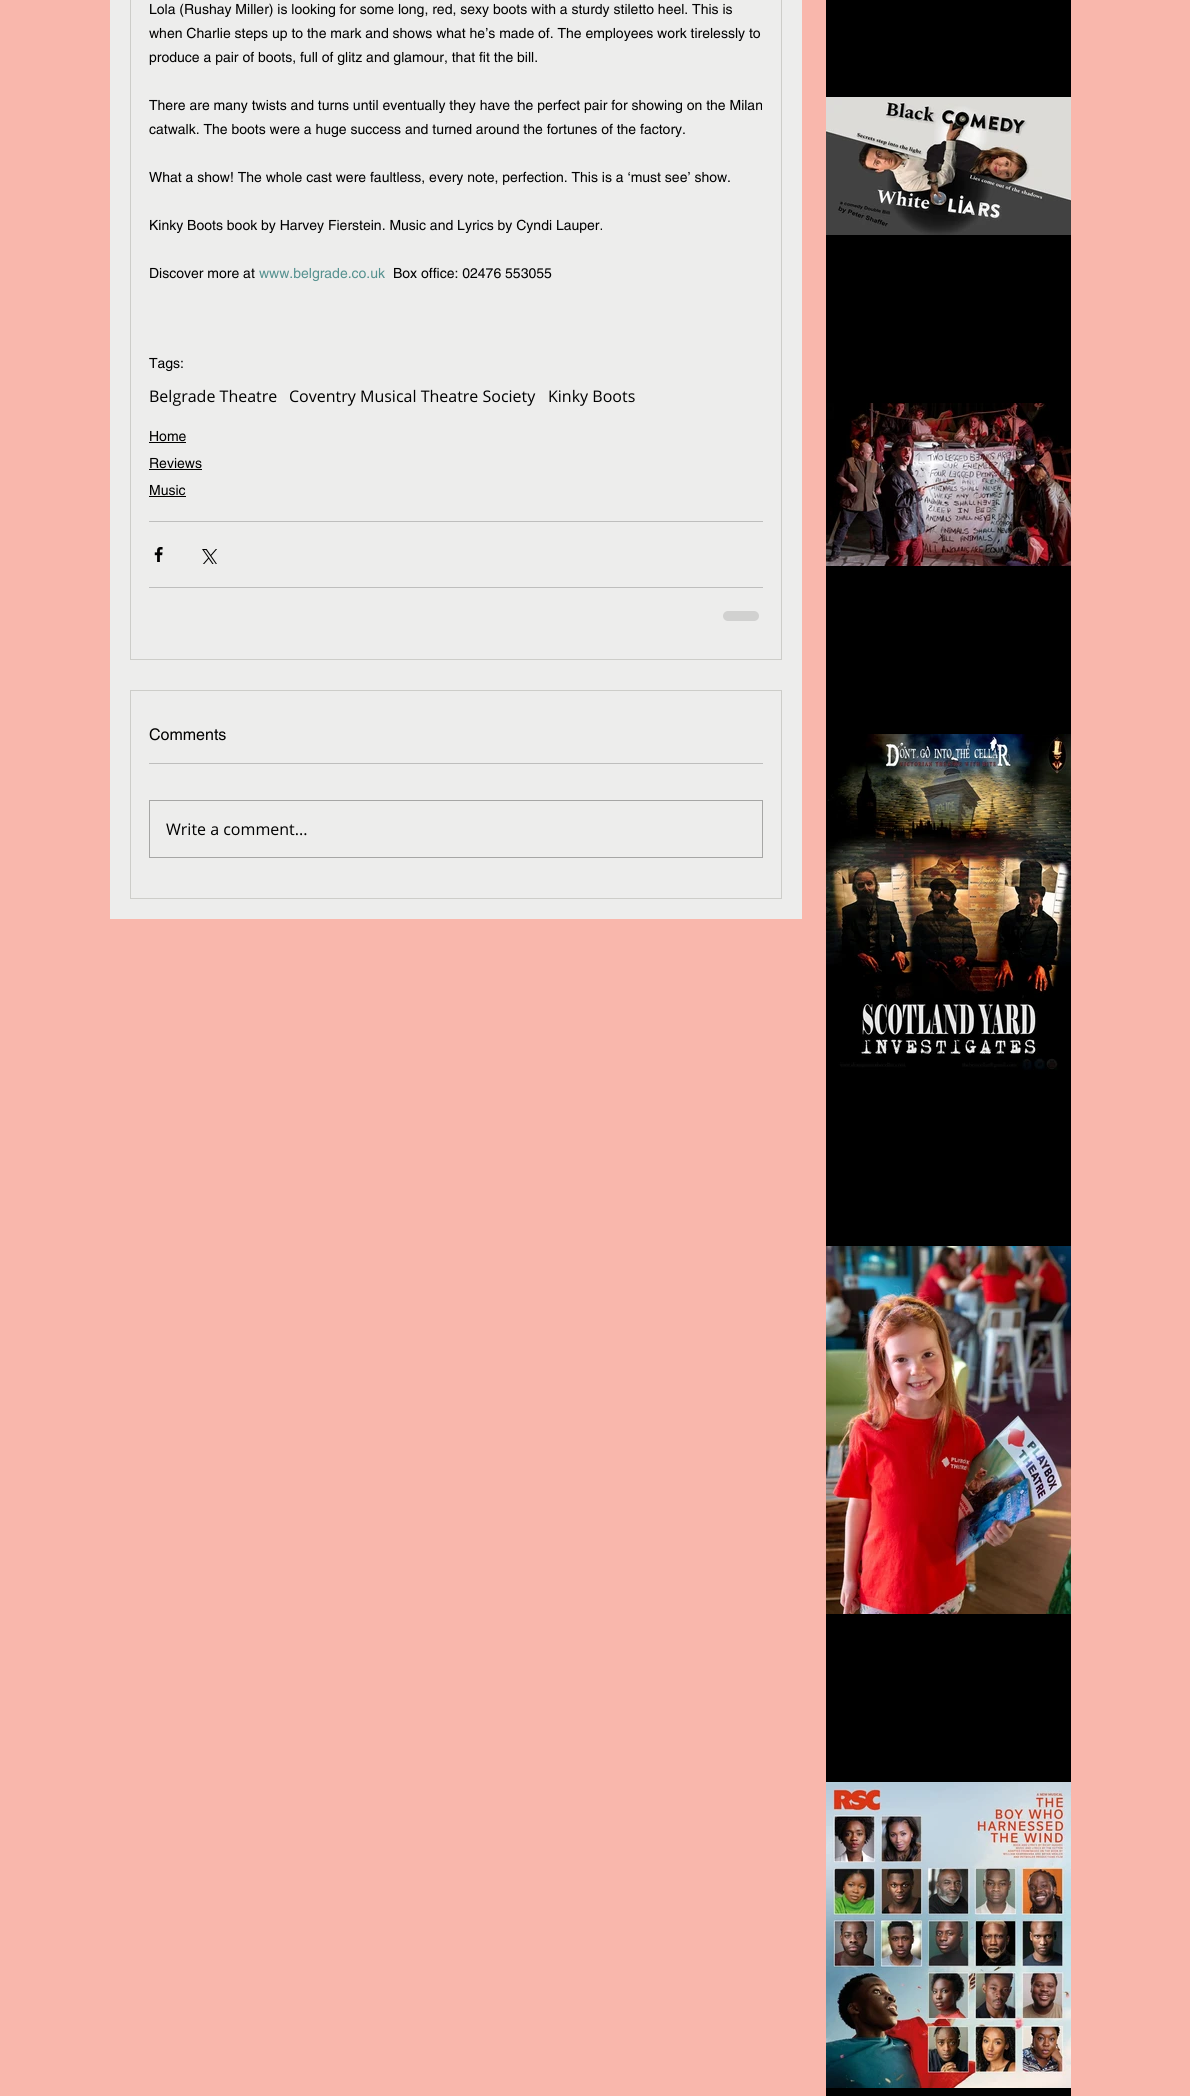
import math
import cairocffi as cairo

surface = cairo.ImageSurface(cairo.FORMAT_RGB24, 1190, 2096)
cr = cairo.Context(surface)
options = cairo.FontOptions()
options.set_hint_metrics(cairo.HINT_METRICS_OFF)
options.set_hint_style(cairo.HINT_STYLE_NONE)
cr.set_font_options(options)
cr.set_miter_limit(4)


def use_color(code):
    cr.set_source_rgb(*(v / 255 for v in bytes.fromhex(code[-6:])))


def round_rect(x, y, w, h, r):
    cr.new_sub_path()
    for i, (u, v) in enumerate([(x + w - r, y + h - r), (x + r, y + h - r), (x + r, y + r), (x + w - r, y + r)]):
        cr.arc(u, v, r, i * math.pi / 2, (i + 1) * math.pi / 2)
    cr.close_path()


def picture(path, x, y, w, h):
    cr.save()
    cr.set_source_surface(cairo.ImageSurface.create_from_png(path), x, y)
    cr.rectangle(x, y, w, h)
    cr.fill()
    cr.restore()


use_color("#f9b7ac")
cr.paint()
use_color("#ededec")
cr.rectangle(110, 0, 692, 919)
cr.fill()
cr.rectangle(130.5, -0.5, 651, 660)
use_color("#cdcdc9")
cr.set_line_width(1)
cr.stroke()
cr.select_font_face("helvetica")
cr.set_font_size(14)
use_color("#000000")
cr.move_to(149, 14)
cr.show_text("Lola (Rushay Miller) is looking for some long, red, sexy boots with a sturdy stiletto heel. This is")
cr.move_to(149, 38)
cr.show_text("when Charlie steps up to the mark and shows what he’s made of. The employees work tirelessly to")
cr.move_to(149, 62)
cr.show_text("produce a pair of boots, full of glitz and glamour, that fit the bill.")
cr.move_to(149, 110)
cr.show_text("There are many twists and turns until eventually they have the perfect pair for showing on the Milan")
cr.move_to(149, 134)
cr.show_text("catwalk. The boots were a huge success and turned around the fortunes of the factory.")
cr.move_to(149, 182)
cr.show_text("What a show! The whole cast were faultless, every note, perfection. This is a ‘must see’ show.")
cr.move_to(149, 230)
cr.show_text("Kinky Boots book by Harvey Fierstein. Music and Lyrics by Cyndi Lauper.")
cr.move_to(149, 278)
cr.show_text("Discover more at")
use_color("#55918f")
cr.move_to(259, 278)
cr.show_text("www.belgrade.co.uk")
use_color("#000000")
cr.move_to(393, 278)
cr.show_text("Box office: 02476 553055")
cr.move_to(149, 368)
cr.show_text("Tags:")
cr.select_font_face("Open Sans")
cr.set_font_size(16)
cr.move_to(149, 402)
cr.show_text("Belgrade Theatre")
cr.move_to(289, 402)
cr.show_text("Coventry Musical Theatre Society")
cr.move_to(548, 402)
cr.show_text("Kinky Boots")
cr.select_font_face("helvetica")
cr.set_font_size(14)
cr.move_to(149, 441)
cr.show_text("Home")
cr.rectangle(149, 442, 37, 1)
cr.fill()
cr.move_to(149, 468)
cr.show_text("Reviews")
cr.rectangle(149, 469, 53, 1)
cr.fill()
cr.move_to(149, 495)
cr.show_text("Music")
cr.rectangle(149, 496, 37, 1)
cr.fill()
use_color("#bebebd")
cr.rectangle(149, 521, 614, 1)
cr.fill()
picture("img1.png", 154, 547, 9, 15)
picture("img2.png", 202, 549, 15, 15)
cr.rectangle(149, 587, 614, 1)
cr.fill()
use_color("#d1d1d0")
round_rect(723, 611, 36, 10, 5)
cr.fill()
cr.rectangle(130.5, 690.5, 651, 208)
use_color("#cdcdc9")
cr.stroke()
cr.set_font_size(16)
use_color("#000000")
cr.move_to(149, 740)
cr.show_text("Comments")
use_color("#bebebd")
cr.rectangle(149, 763, 614, 1)
cr.fill()
cr.rectangle(149.5, 800.5, 613, 57)
use_color("#a6a6a5")
cr.stroke()
cr.select_font_face("Open Sans")
use_color("#000000")
cr.move_to(166, 835)
cr.show_text("Write a comment...")
cr.rectangle(826, 0, 245, 2096)
cr.fill()
picture("img3.png", 826, 97, 245, 138)
picture("img4.png", 826, 403, 245, 163)
picture("img5.png", 826, 734, 245, 344)
picture("img6.png", 826, 1246, 245, 368)
picture("img7.png", 826, 1782, 245, 306)
surface.write_to_png("result.png")
